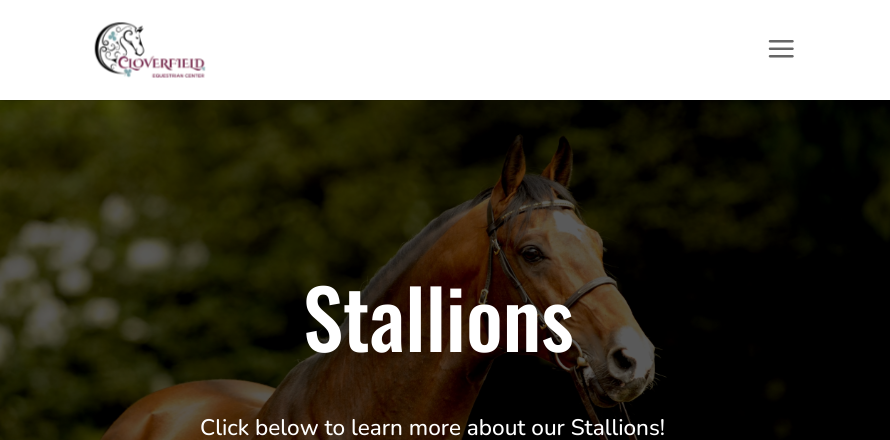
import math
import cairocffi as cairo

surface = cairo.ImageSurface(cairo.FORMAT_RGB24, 890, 440)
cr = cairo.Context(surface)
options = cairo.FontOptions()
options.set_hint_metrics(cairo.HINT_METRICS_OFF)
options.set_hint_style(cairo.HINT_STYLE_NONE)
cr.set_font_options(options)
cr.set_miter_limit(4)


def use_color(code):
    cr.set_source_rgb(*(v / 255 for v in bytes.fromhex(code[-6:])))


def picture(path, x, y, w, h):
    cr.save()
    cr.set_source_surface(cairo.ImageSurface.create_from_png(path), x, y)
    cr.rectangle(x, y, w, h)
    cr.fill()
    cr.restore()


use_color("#ffffff")
cr.paint()
picture("img3.png", 0, 100, 890, 340)
cr.set_source_rgba(0, 0, 0, 0.1)
cr.rectangle(0, 100, 425, 1)
cr.fill()
picture("img1.png", 94, 22, 112, 56)
picture("img2.png", 768, 40, 26, 18)
cr.select_font_face("Oswald Medium")
cr.set_font_size(81)
use_color("#ffffff")
cr.move_to(303, 352)
cr.show_text("Stallions")
cr.select_font_face("Nunito Medium")
cr.set_font_size(22.5)
cr.move_to(200, 435)
cr.show_text("Click below to learn more about our Stallions!")
surface.write_to_png("result.png")
